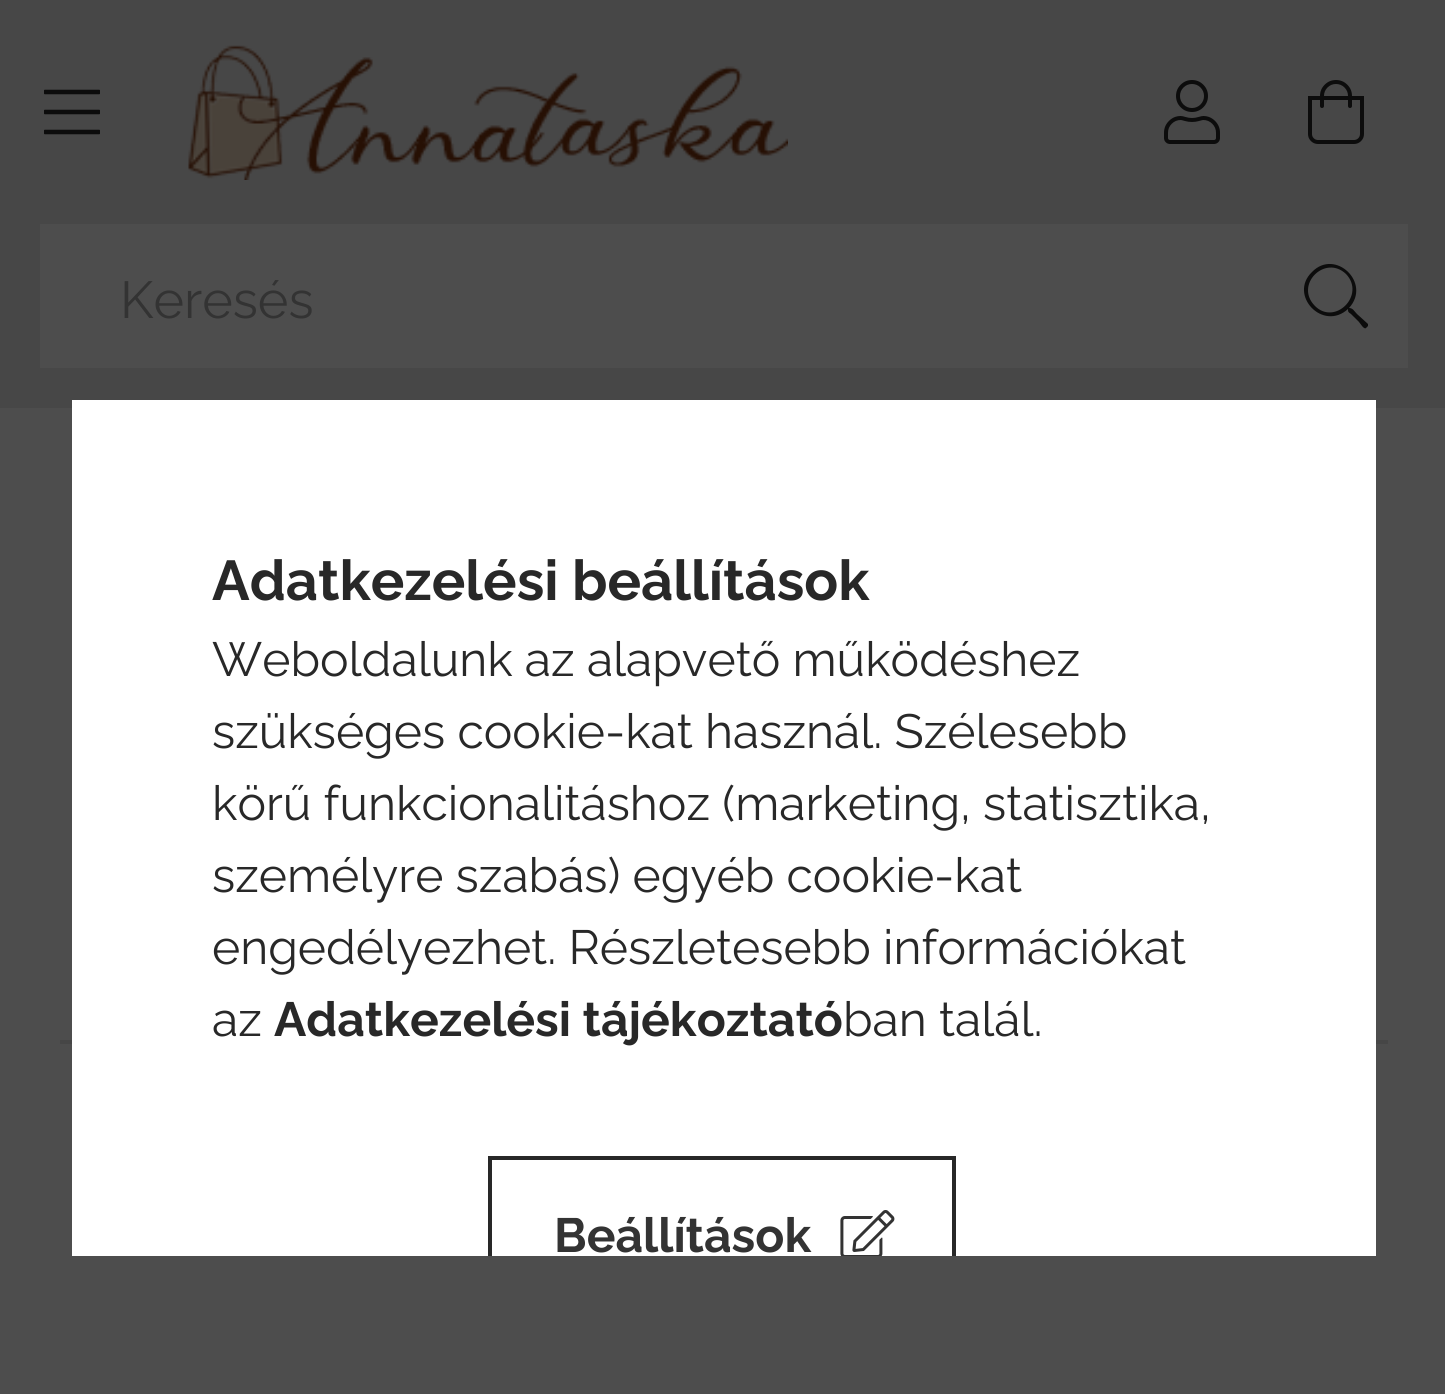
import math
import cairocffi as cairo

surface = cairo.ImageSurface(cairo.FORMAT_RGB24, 1445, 1394)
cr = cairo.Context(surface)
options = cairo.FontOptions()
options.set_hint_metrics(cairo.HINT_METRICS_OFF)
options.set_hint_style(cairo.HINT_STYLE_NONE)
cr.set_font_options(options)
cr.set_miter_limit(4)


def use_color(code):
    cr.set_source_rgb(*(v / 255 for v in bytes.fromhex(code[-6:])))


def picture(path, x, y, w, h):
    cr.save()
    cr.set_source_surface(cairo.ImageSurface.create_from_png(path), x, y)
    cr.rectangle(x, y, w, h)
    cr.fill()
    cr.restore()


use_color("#4d4d4d")
cr.paint()
use_color("#474747")
cr.rectangle(0, 0, 1445, 408)
cr.fill()
picture("img1.png", 44, 89, 56, 46)
picture("img2.png", 188, 45, 600, 135)
picture("img3.png", 1164, 80, 56, 64)
picture("img4.png", 1308, 80, 56, 64)
use_color("#4d4d4d")
cr.rectangle(40, 224, 1368, 144)
cr.fill()
cr.select_font_face("Raleway")
cr.set_font_size(52)
use_color("#333333")
cr.move_to(120, 318)
cr.show_text("Keresés")
use_color("#0c0c0c")
cr.new_path()
cr.move_to(1368, 324)
cr.line_to(1368, 326)
cr.line_to(1366, 328)
cr.curve_to(1364, 330, 1360, 323, 1359, 322)
cr.line_to(1351, 314)
cr.curve_to(1348, 312, 1348, 312, 1348, 309)
cr.curve_to(1323, 332, 1288, 295, 1312, 272)
cr.curve_to(1335, 248, 1372, 283, 1349, 308)
cr.curve_to(1353, 308, 1354, 311, 1357, 314)
cr.close_path()
cr.move_to(1315, 306)
cr.curve_to(1335, 326, 1366, 295, 1346, 274)
cr.curve_to(1325, 254, 1294, 285, 1315, 306)
cr.close_path()
cr.fill()
use_color("#464646")
cr.rectangle(60, 1040, 1328, 4)
cr.fill()
use_color("#ffffff")
cr.rectangle(72, 400, 1304, 856)
cr.fill()
cr.select_font_face("Raleway", cairo.FONT_SLANT_NORMAL, cairo.FONT_WEIGHT_BOLD)
cr.set_font_size(56)
use_color("#282828")
cr.move_to(212, 600)
cr.show_text("Adatkezelési beállítások")
cr.select_font_face("Raleway")
cr.set_font_size(48)
cr.move_to(212, 676)
cr.show_text("Weboldalunk az alapvető működéshez")
cr.move_to(212, 748)
cr.show_text("szükséges cookie-kat használ. Szélesebb")
cr.move_to(212, 820)
cr.show_text("körű funkcionalitáshoz (marketing, statisztika,")
cr.move_to(212, 892)
cr.show_text("személyre szabás) egyéb cookie-kat")
cr.move_to(212, 964)
cr.show_text("engedélyezhet. Részletesebb információkat")
cr.move_to(212, 1036)
cr.show_text("az")
cr.select_font_face("Raleway", cairo.FONT_SLANT_NORMAL, cairo.FONT_WEIGHT_BOLD)
cr.move_to(274, 1036)
cr.show_text("Adatkezelési tájékoztató")
cr.select_font_face("Raleway")
cr.move_to(843, 1036)
cr.show_text("ban talál.")
cr.save()
cr.rectangle(72, 400, 1304, 856)
cr.clip()
cr.rectangle(490, 1158, 464, 156)
cr.set_line_width(4)
cr.stroke()
cr.restore()
cr.select_font_face("Raleway", cairo.FONT_SLANT_NORMAL, cairo.FONT_WEIGHT_BOLD)
use_color("#333333")
cr.move_to(554, 1252)
cr.show_text("Beállítások")
picture("img5.png", 840, 1210, 55, 46)
surface.write_to_png("result.png")
